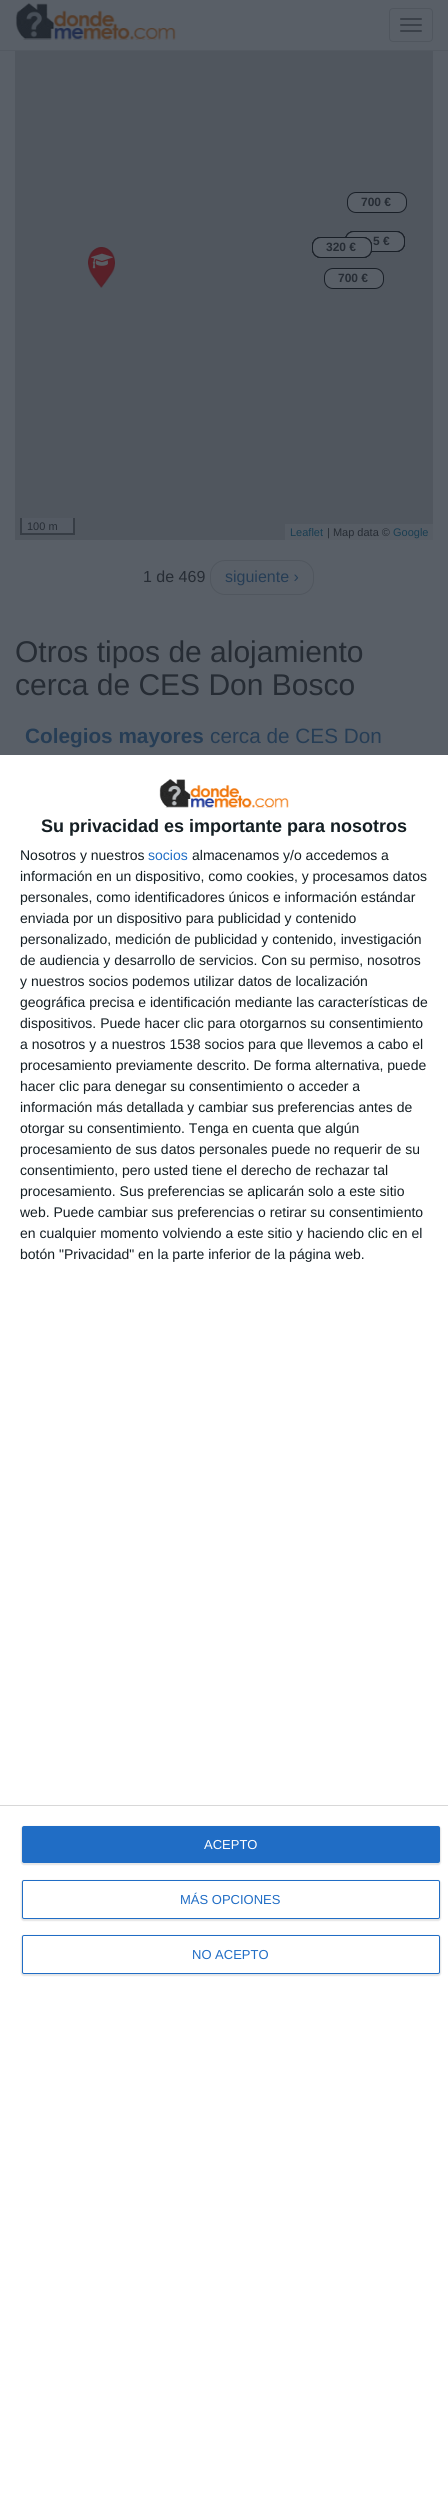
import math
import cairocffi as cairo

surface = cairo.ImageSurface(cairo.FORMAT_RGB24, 448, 2517)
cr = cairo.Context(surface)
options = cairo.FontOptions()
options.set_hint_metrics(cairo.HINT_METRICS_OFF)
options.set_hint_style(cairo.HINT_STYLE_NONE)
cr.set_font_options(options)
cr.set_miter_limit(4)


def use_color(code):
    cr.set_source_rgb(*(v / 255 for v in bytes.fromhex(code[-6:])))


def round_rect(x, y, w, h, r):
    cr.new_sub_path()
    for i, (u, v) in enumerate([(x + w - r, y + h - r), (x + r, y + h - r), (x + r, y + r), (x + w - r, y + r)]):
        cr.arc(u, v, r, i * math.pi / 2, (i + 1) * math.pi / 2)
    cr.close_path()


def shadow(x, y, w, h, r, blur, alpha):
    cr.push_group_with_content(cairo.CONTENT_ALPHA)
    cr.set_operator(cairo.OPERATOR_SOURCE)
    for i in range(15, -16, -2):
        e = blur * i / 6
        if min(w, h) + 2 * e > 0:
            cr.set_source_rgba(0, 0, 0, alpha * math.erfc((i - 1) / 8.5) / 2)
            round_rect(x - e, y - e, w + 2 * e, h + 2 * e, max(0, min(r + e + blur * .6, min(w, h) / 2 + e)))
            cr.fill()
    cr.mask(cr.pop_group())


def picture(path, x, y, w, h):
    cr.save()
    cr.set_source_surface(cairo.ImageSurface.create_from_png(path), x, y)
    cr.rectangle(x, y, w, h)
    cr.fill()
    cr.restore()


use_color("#595f67")
cr.paint()
use_color("#535961")
cr.rectangle(0, 50, 448, 1)
cr.fill()
picture("img1.png", 15, 3, 161, 37)
round_rect(389.5, 8.5, 43, 33, 3.5)
use_color("#50565e")
cr.set_line_width(1)
cr.stroke()
use_color("#3b4149")
round_rect(400, 18, 22, 2, 1)
cr.fill()
round_rect(400, 24, 22, 2, 1)
cr.fill()
round_rect(400, 30, 22, 2, 1)
cr.fill()
use_color("#50565e")
cr.rectangle(15, 51, 418, 489)
cr.fill()
use_color("#595f67")
round_rect(347.5, 192.5, 59, 20, 8.5)
cr.fill_preserve()
use_color("#191f27")
cr.stroke()
cr.select_font_face("Liberation Sans", cairo.FONT_SLANT_NORMAL, cairo.FONT_WEIGHT_BOLD)
cr.set_font_size(12)
use_color("#262c34")
cr.move_to(361, 206)
cr.show_text("700 €")
round_rect(345.5, 231.5, 59, 20, 8.5)
use_color("#191f27")
cr.stroke()
round_rect(345.5, 231.5, 59, 20, 8.5)
cr.stroke()
round_rect(345.5, 231.5, 59, 20, 8.5)
cr.stroke()
use_color("#595f67")
round_rect(345.5, 231.5, 59, 20, 8.5)
cr.fill_preserve()
use_color("#191f27")
cr.stroke()
round_rect(312.5, 237.5, 59, 20, 8.5)
cr.stroke()
use_color("#262c34")
cr.move_to(373, 245)
cr.show_text("5 €")
round_rect(312.5, 237.5, 59, 20, 8.5)
use_color("#191f27")
cr.stroke()
round_rect(312.5, 237.5, 59, 20, 8.5)
cr.stroke()
picture("img2.png", 88, 247, 27, 41)
picture("img3.png", 91, 253, 22, 16)
use_color("#595f67")
round_rect(312.5, 237.5, 59, 20, 8.5)
cr.fill_preserve()
use_color("#191f27")
cr.stroke()
use_color("#262c34")
cr.move_to(326, 251)
cr.show_text("320 €")
use_color("#595f67")
round_rect(324.5, 268.5, 59, 20, 8.5)
cr.fill_preserve()
use_color("#191f27")
cr.stroke()
use_color("#262c34")
cr.move_to(338, 282)
cr.show_text("700 €")
use_color("#545a63")
cr.rectangle(22, 518, 51, 15)
cr.fill()
use_color("#373d45")
cr.rectangle(73, 518, 2, 17)
cr.fill()
cr.rectangle(20, 533, 55, 2)
cr.fill()
cr.rectangle(20, 518, 2, 17)
cr.fill()
cr.select_font_face("Liberation Sans")
cr.set_font_size(11)
use_color("#262c34")
cr.move_to(27, 530)
cr.show_text("100 m")
use_color("#565c64")
cr.rectangle(285, 524, 148, 16)
cr.fill()
use_color("#193d51")
cr.move_to(290, 536)
cr.show_text("Leaflet")
use_color("#262c34")
cr.move_to(327, 536)
cr.show_text("| Map data ©")
use_color("#193d51")
cr.move_to(393, 536)
cr.show_text("Google")
cr.set_font_size(16)
use_color("#262c34")
cr.move_to(143, 582)
cr.show_text("1 de 469")
round_rect(210.5, 560.5, 103, 34, 14.5)
use_color("#50565e")
cr.stroke()
use_color("#263d55")
cr.move_to(225, 582)
cr.show_text("siguiente ›")
cr.set_font_size(30)
use_color("#262c34")
cr.move_to(15, 662)
cr.show_text("Otros tipos de alojamiento")
cr.move_to(15, 695)
cr.show_text("cerca de CES Don Bosco")
cr.select_font_face("Liberation Sans", cairo.FONT_SLANT_NORMAL, cairo.FONT_WEIGHT_BOLD)
cr.set_font_size(20.75)
use_color("#263d55")
cr.move_to(25, 743)
cr.show_text("Colegios mayores")
cr.select_font_face("Liberation Sans")
cr.move_to(210, 743)
cr.show_text("cerca de CES Don")
use_color("#ffffff")
cr.rectangle(0, 755, 448, 1762)
cr.fill()
picture("img4.png", 159, 779, 130, 29)
cr.select_font_face("Liberation Sans", cairo.FONT_SLANT_NORMAL, cairo.FONT_WEIGHT_BOLD)
cr.set_font_size(18)
use_color("#141e23")
cr.move_to(41, 832)
cr.show_text("Su privacidad es importante para nosotros")
cr.select_font_face("Liberation Sans")
cr.set_font_size(14)
cr.move_to(20, 860)
cr.show_text("Nosotros y nuestros")
use_color("#206dc5")
cr.move_to(148, 860)
cr.show_text("socios")
use_color("#141e23")
cr.move_to(192, 860)
cr.show_text("almacenamos y/o accedemos a")
cr.move_to(20, 881)
cr.show_text("información en un dispositivo, como cookies, y procesamos datos")
cr.move_to(20, 902)
cr.show_text("personales, como identificadores únicos e información estándar")
cr.move_to(20, 923)
cr.show_text("enviada por un dispositivo para publicidad y contenido")
cr.move_to(20, 944)
cr.show_text("personalizado, medición de publicidad y contenido, investigación")
cr.move_to(20, 965)
cr.show_text("de audiencia y desarrollo de servicios. Con su permiso, nosotros")
cr.move_to(20, 986)
cr.show_text("y nuestros socios podemos utilizar datos de localización")
cr.move_to(20, 1007)
cr.show_text("geográfica precisa e identificación mediante las características de")
cr.move_to(20, 1028)
cr.show_text("dispositivos. Puede hacer clic para otorgarnos su consentimiento")
cr.move_to(20, 1049)
cr.show_text("a nosotros y a nuestros 1538 socios para que llevemos a cabo el")
cr.move_to(20, 1070)
cr.show_text("procesamiento previamente descrito. De forma alternativa, puede")
cr.move_to(20, 1091)
cr.show_text("hacer clic para denegar su consentimiento o acceder a")
cr.move_to(20, 1112)
cr.show_text("información más detallada y cambiar sus preferencias antes de")
cr.move_to(20, 1133)
cr.show_text("otorgar su consentimiento. Tenga en cuenta que algún")
cr.move_to(20, 1154)
cr.show_text("procesamiento de sus datos personales puede no requerir de su")
cr.move_to(20, 1175)
cr.show_text("consentimiento, pero usted tiene el derecho de rechazar tal")
cr.move_to(20, 1196)
cr.show_text("procesamiento. Sus preferencias se aplicarán solo a este sitio")
cr.move_to(20, 1217)
cr.show_text("web. Puede cambiar sus preferencias o retirar su consentimiento")
cr.move_to(20, 1238)
cr.show_text("en cualquier momento volviendo a este sitio y haciendo clic en el")
cr.move_to(20, 1259)
cr.show_text("botón \"Privacidad\" en la parte inferior de la página web.")
use_color("#d8d8d8")
cr.rectangle(0, 1805, 448, 1)
cr.fill()
use_color("#000000")
shadow(21, 1826, 420, 39, 3, 0.5, 0.1)
use_color("#206dc5")
round_rect(22, 1826, 418, 37, 2)
cr.fill()
cr.set_font_size(13)
use_color("#ffffff")
cr.move_to(204, 1849)
cr.show_text("ACEPTO")
use_color("#000000")
shadow(21, 1880, 420, 41, 3, 0.5, 0.1)
use_color("#ffffff")
round_rect(22.5, 1880.5, 417, 38, 1.5)
cr.fill_preserve()
use_color("#206dc5")
cr.stroke()
cr.move_to(180, 1904)
cr.show_text("MÁS OPCIONES")
use_color("#000000")
shadow(21, 1935, 420, 41, 3, 0.5, 0.1)
use_color("#ffffff")
round_rect(22.5, 1935.5, 417, 38, 1.5)
cr.fill_preserve()
use_color("#206dc5")
cr.stroke()
cr.move_to(192, 1959)
cr.show_text("NO ACEPTO")
surface.write_to_png("result.png")
